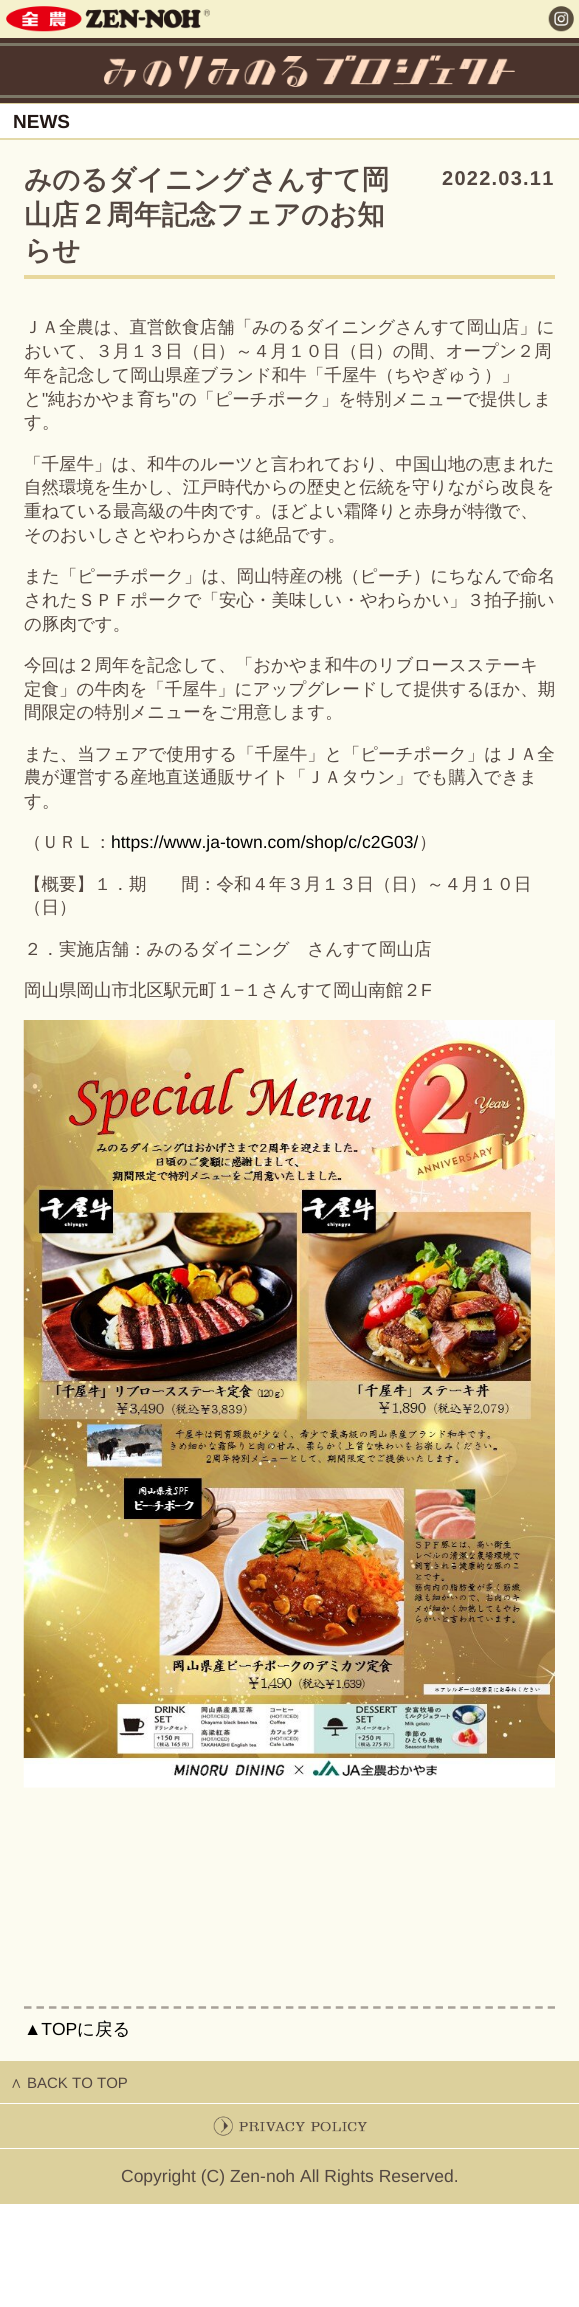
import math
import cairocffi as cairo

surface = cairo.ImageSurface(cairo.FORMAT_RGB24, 579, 2307)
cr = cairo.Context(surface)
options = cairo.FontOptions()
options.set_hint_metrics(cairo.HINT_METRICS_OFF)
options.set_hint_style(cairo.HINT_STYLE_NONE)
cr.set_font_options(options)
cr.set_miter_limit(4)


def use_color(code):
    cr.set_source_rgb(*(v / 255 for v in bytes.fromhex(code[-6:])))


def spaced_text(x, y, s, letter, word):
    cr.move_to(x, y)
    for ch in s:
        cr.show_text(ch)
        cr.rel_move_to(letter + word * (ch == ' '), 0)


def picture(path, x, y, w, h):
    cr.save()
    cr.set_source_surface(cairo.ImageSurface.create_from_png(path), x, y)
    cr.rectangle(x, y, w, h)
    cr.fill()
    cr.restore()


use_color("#ffffff")
cr.paint()
use_color("#f5f1cd")
cr.rectangle(0, 0, 579, 38)
cr.fill()
picture("img1.png", 6, 6, 204, 26)
picture("img2.png", 548, 6, 26, 26)
use_color("#4a332c")
cr.rectangle(0, 38, 579, 65)
cr.fill()
use_color("#7c7867")
cr.rectangle(0, 43, 579, 3)
cr.fill()
cr.rectangle(0, 95, 579, 3)
cr.fill()
picture("img3.png", 104, 55, 411, 34)
use_color("#dbcf9b")
cr.rectangle(0, 103, 579, 1)
cr.fill()
use_color("#e3d9a9")
cr.rectangle(0, 138, 579, 2)
cr.fill()
cr.select_font_face("Liberation Sans", cairo.FONT_SLANT_NORMAL, cairo.FONT_WEIGHT_BOLD)
cr.set_font_size(19)
use_color("#231815")
cr.move_to(13, 128)
cr.show_text("NEWS")
use_color("#fcfbf0")
cr.rectangle(0, 140, 579, 1921)
cr.fill()
use_color("#e8d89d")
cr.rectangle(24, 275, 531, 4)
cr.fill()
cr.select_font_face("WenQuanYi Zen Hei", cairo.FONT_SLANT_NORMAL, cairo.FONT_WEIGHT_BOLD)
cr.set_font_size(27.5)
use_color("#534741")
cr.move_to(24, 189)
cr.show_text("みのるダイニングさんすて岡")
cr.select_font_face("Liberation Sans", cairo.FONT_SLANT_NORMAL, cairo.FONT_WEIGHT_BOLD)
cr.set_font_size(20)
spaced_text(442, 185, "2022.03.11", 1.25, 0)
cr.select_font_face("WenQuanYi Zen Hei", cairo.FONT_SLANT_NORMAL, cairo.FONT_WEIGHT_BOLD)
cr.set_font_size(27.5)
cr.move_to(24, 224)
cr.show_text("山店２周年記念フェアのお知")
cr.move_to(24, 260)
cr.show_text("らせ")
cr.select_font_face("WenQuanYi Zen Hei Medium")
cr.set_font_size(17.5)
cr.move_to(24, 333)
cr.show_text("ＪＡ全農は、直営飲食店舗「みのるダイニングさんすて岡山店」に")
cr.move_to(24, 357)
cr.show_text("おいて、３月１３日（日）～４月１０日（日）の間、オープン２周")
cr.move_to(24, 381)
cr.show_text("年を記念して岡山県産ブランド和牛「千屋牛（ちやぎゅう）」")
cr.move_to(24, 405)
cr.show_text("と")
cr.select_font_face("Liberation Sans")
cr.move_to(42, 405)
cr.show_text("\"")
cr.select_font_face("WenQuanYi Zen Hei Medium")
cr.move_to(48, 405)
cr.show_text("純おかやま育ち")
cr.select_font_face("Liberation Sans")
cr.move_to(172, 405)
cr.show_text("\"")
cr.select_font_face("WenQuanYi Zen Hei Medium")
cr.move_to(179, 405)
cr.show_text("の「ピーチポーク」を特別メニューで提供しま")
cr.move_to(24, 428)
cr.show_text("す。")
cr.move_to(24, 470)
cr.show_text("「千屋牛」は、和牛のルーツと言われており、中国山地の恵まれた")
cr.move_to(24, 493)
cr.show_text("自然環境を生かし、江戸時代からの歴史と伝統を守りながら改良を")
cr.move_to(24, 517)
cr.show_text("重ねている最高級の牛肉です。ほどよい霜降りと赤身が特徴で、")
cr.move_to(24, 541)
cr.show_text("そのおいしさとやわらかさは絶品です。")
cr.move_to(24, 582)
cr.show_text("また「ピーチポーク」は、岡山特産の桃（ピーチ）にちなんで命名")
cr.move_to(24, 606)
cr.show_text("されたＳＰＦポークで「安心・美味しい・やわらかい」３拍子揃い")
cr.move_to(24, 630)
cr.show_text("の豚肉です。")
cr.move_to(24, 671)
cr.show_text("今回は２周年を記念して、「おかやま和牛のリブロースステーキ")
cr.move_to(24, 695)
cr.show_text("定食」の牛肉を「千屋牛」にアップグレードして提供するほか、期")
cr.move_to(24, 718)
cr.show_text("間限定の特別メニューをご用意します。")
cr.move_to(24, 760)
cr.show_text("また、当フェアで使用する「千屋牛」と「ピーチポーク」はＪＡ全")
cr.move_to(24, 783)
cr.show_text("農が運営する産地直送通販サイト「ＪＡタウン」でも購入できま")
cr.move_to(24, 807)
cr.show_text("す。")
cr.move_to(24, 848)
cr.show_text("（ＵＲＬ：")
cr.select_font_face("Liberation Sans")
use_color("#000000")
cr.move_to(111, 848)
cr.show_text("https://www.ja-town.com/shop/c/c2G03/")
cr.select_font_face("WenQuanYi Zen Hei Medium")
use_color("#534741")
cr.move_to(419, 848)
cr.show_text("）")
cr.move_to(24, 890)
cr.show_text("【概要】１．期　　間：令和４年３月１３日（日）～４月１０日")
cr.move_to(24, 913)
cr.show_text("（日）")
cr.move_to(24, 955)
cr.show_text("２．実施店舗：みのるダイニング　さんすて岡山店")
cr.move_to(24, 996)
cr.show_text("岡山県岡山市北区駅元町１")
cr.select_font_face("Liberation Sans")
cr.move_to(234, 996)
cr.show_text("−")
cr.select_font_face("WenQuanYi Zen Hei Medium")
cr.move_to(244, 996)
cr.show_text("１さんすて岡山南館２")
cr.select_font_face("Liberation Sans")
cr.move_to(421, 996)
cr.show_text("F")
picture("img4.png", 23, 1020, 532, 768)
cr.new_path()
cr.move_to(24, 2007.5)
cr.line_to(555, 2007.5)
use_color("#a8a199")
cr.set_line_width(2.5)
cr.set_dash([7.5, 4.97])
cr.stroke()
use_color("#000000")
cr.move_to(24, 2035)
cr.show_text("▲TOP")
cr.select_font_face("WenQuanYi Zen Hei Medium")
cr.move_to(77, 2035)
cr.show_text("に戻る")
use_color("#dcd09c")
cr.rectangle(0, 2061, 579, 42)
cr.fill()
cr.set_font_size(15)
use_color("#534741")
cr.move_to(10, 2088)
cr.show_text("∧")
cr.select_font_face("Liberation Sans")
cr.move_to(27, 2088)
cr.show_text("BACK TO TOP")
use_color("#dcd09c")
cr.rectangle(0, 2104, 579, 44)
cr.fill()
picture("img5.png", 213, 2116, 155, 20)
cr.rectangle(0, 2149, 579, 55)
cr.fill()
cr.set_font_size(17.5)
use_color("#534741")
cr.move_to(121, 2182)
cr.show_text("Copyright (C) Zen-noh All Rights Reserved.")
surface.write_to_png("result.png")
